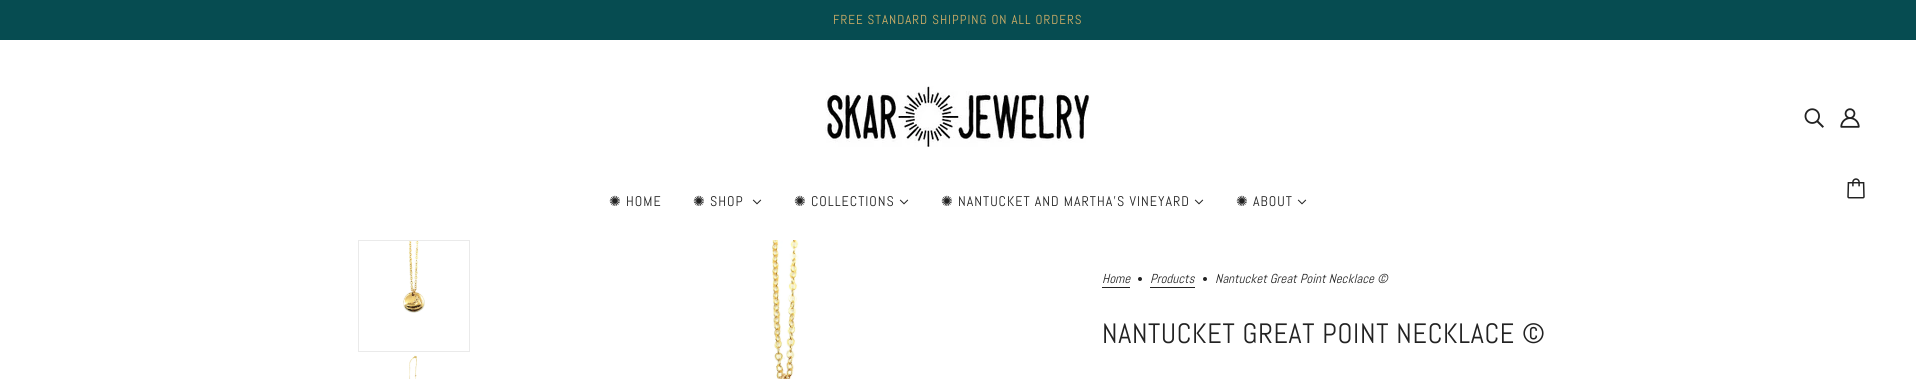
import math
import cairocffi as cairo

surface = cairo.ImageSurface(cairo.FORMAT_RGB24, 1916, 379)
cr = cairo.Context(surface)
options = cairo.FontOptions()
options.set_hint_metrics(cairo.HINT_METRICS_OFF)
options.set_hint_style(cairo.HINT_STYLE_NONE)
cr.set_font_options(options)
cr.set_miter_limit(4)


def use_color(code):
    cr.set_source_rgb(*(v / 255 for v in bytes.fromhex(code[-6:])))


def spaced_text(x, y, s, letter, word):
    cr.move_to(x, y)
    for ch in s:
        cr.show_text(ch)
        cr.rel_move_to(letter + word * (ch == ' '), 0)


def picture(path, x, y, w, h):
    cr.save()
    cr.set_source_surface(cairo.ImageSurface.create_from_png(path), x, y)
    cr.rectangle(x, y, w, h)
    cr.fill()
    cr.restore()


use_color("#ffffff")
cr.paint()
use_color("#064c51")
cr.rectangle(0, 0, 1916, 40)
cr.fill()
cr.select_font_face("Abel")
cr.set_font_size(13)
use_color("#d2af67")
spaced_text(833, 24, "FREE STANDARD SHIPPING ON ALL ORDERS", 1, 0)
picture("img1.png", 825, 86, 265, 61)
picture("img2.png", 1804, 108, 20, 20)
picture("img3.png", 1840, 108, 20, 20)
picture("img4.png", 1847, 178, 18, 21)
cr.select_font_face("DejaVu Sans")
cr.set_font_size(14)
use_color("#222222")
spaced_text(609, 206, "✺", 1, 0)
cr.select_font_face("Abel")
spaced_text(626, 206, "HOME", 1, 0)
cr.select_font_face("DejaVu Sans")
spaced_text(693, 206, "✺", 1, 0)
cr.select_font_face("Abel")
spaced_text(710, 206, "SHOP", 1, 0)
picture("img5.png", 752, 199, 10, 6)
cr.select_font_face("DejaVu Sans")
spaced_text(794, 206, "✺", 1, 0)
cr.select_font_face("Abel")
spaced_text(811, 206, "COLLECTIONS", 1, 0)
picture("img5.png", 899, 199, 10, 6)
cr.select_font_face("DejaVu Sans")
spaced_text(941, 206, "✺", 1, 0)
cr.select_font_face("Abel")
spaced_text(958, 206, "NANTUCKET AND MARTHA'S VINEYARD", 1, 0)
picture("img5.png", 1194, 199, 10, 6)
cr.select_font_face("DejaVu Sans")
spaced_text(1236, 206, "✺", 1, 0)
cr.select_font_face("Abel")
spaced_text(1253, 206, "ABOUT", 1, 0)
picture("img5.png", 1297, 199, 10, 6)
cr.rectangle(358.5, 240.5, 111, 111)
use_color("#eaeaea")
cr.set_line_width(1)
cr.stroke()
picture("img6.png", 403, 241, 22, 72)
picture("img7.png", 409, 355, 8, 24)
picture("img8.png", 772, 240, 27, 139)
cr.select_font_face("Abel", cairo.FONT_SLANT_ITALIC)
cr.set_font_size(13)
use_color("#222222")
cr.move_to(1102, 283)
cr.show_text("Home")
cr.rectangle(1102, 287, 28, 1)
cr.fill()
cr.arc(1140, 279, 2, 0, 2 * math.pi)
cr.fill()
cr.move_to(1150, 283)
cr.show_text("Products")
cr.rectangle(1150, 287, 45, 1)
cr.fill()
cr.arc(1205, 279, 2, 0, 2 * math.pi)
cr.fill()
cr.move_to(1215, 283)
cr.show_text("Nantucket Great Point Necklace ©")
cr.select_font_face("Abel")
cr.set_font_size(28)
spaced_text(1102, 343, "NANTUCKET GREAT POINT NECKLACE ©", 0.7, 0)
surface.write_to_png("result.png")
